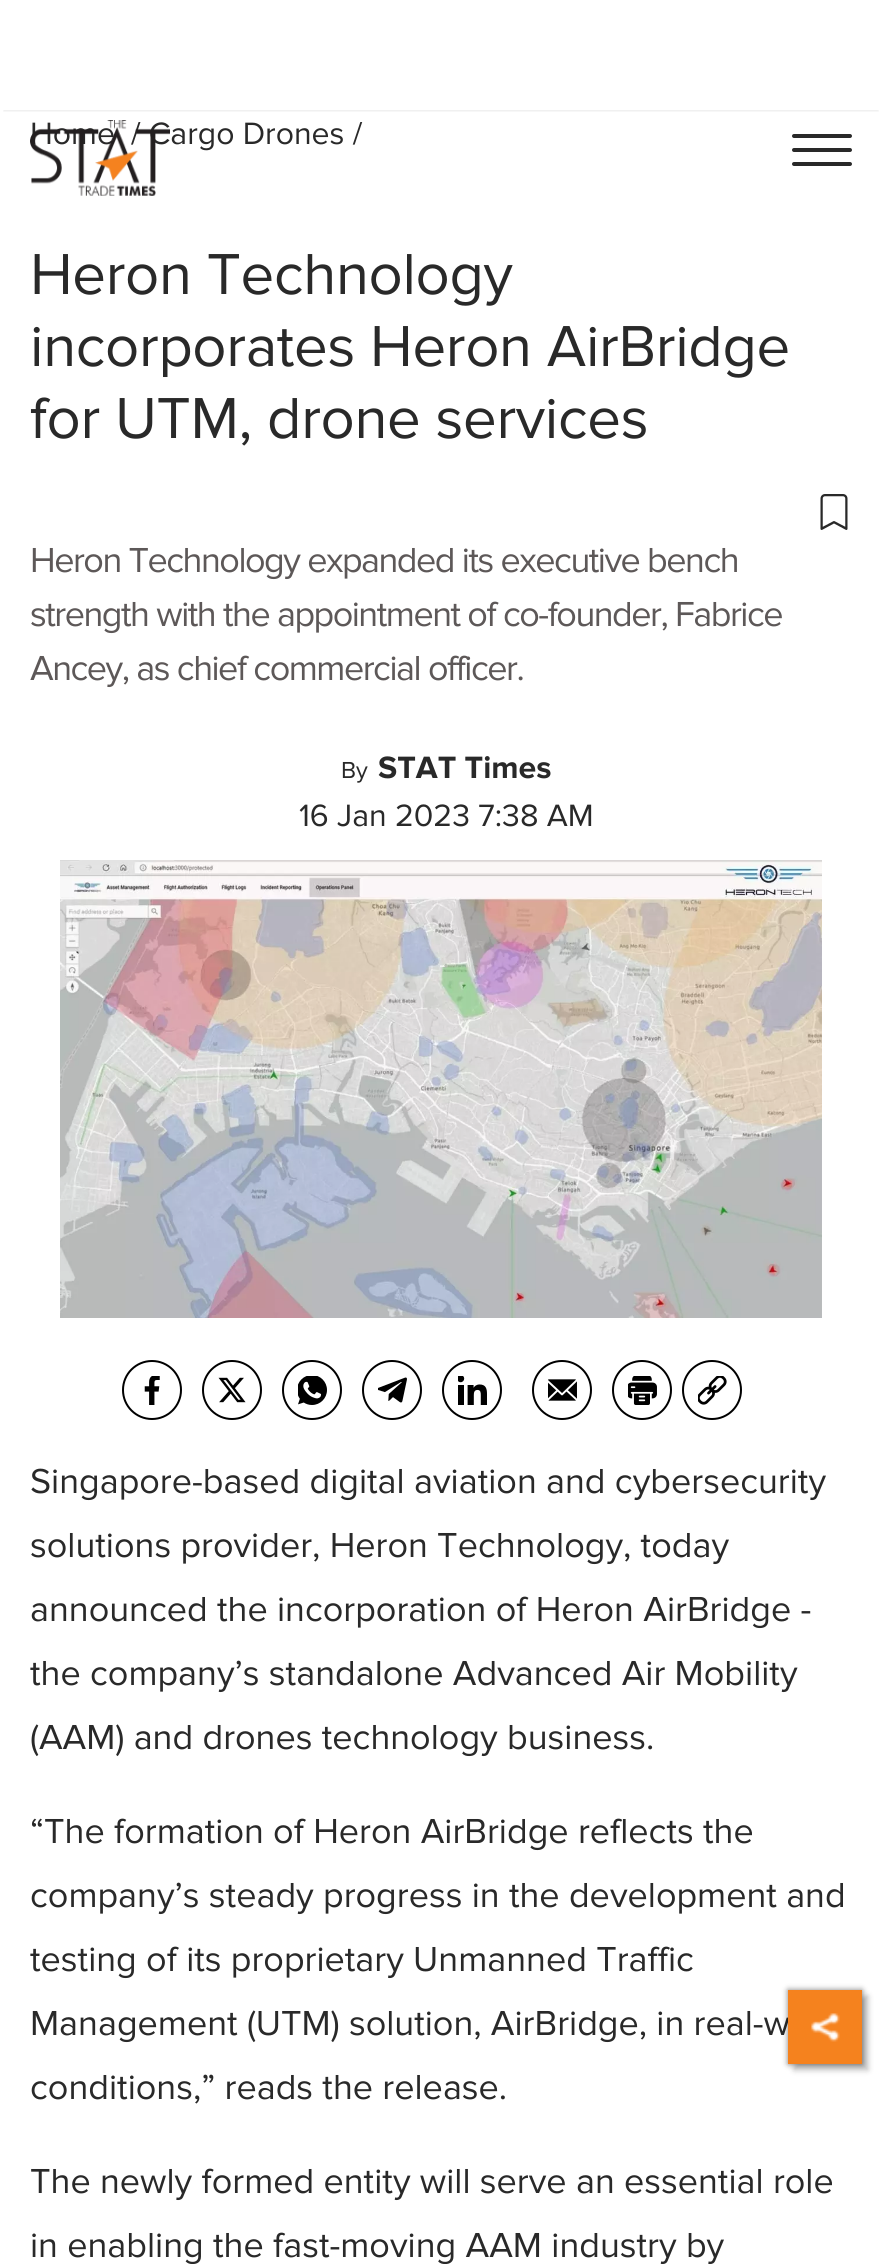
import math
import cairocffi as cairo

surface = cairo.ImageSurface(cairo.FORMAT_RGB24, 882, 2264)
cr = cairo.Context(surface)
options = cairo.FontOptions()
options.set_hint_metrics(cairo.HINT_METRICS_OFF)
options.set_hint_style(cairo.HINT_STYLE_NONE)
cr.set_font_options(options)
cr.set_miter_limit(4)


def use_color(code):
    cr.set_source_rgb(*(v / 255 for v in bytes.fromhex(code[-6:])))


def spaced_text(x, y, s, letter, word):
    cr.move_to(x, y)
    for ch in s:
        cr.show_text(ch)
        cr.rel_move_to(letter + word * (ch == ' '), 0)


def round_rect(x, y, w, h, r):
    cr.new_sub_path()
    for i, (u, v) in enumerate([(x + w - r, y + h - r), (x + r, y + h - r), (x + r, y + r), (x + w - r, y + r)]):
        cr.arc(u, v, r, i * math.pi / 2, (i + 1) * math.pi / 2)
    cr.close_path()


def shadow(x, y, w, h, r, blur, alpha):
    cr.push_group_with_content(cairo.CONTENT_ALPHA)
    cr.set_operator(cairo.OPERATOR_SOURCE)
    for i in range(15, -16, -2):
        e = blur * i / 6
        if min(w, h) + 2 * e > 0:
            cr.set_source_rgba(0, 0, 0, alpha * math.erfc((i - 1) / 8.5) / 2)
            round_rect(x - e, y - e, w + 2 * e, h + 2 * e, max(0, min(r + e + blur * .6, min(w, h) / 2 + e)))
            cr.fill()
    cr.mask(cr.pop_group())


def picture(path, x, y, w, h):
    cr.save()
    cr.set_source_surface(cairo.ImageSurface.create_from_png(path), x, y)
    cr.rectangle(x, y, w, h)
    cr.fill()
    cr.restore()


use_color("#ffffff")
cr.paint()
cr.save()
cr.rectangle(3, 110, 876, 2)
cr.clip()
use_color("#000000")
shadow(4, 8, 874, 102, 0, 2, 0.15)
cr.restore()
cr.select_font_face("Proxima Nova")
cr.set_font_size(32)
use_color("#292929")
cr.move_to(30, 144)
cr.show_text("Home")
cr.move_to(131, 144)
cr.show_text("/ Cargo Drones /")
picture("img1.png", 30, 120, 140, 76)
round_rect(792, 148, 60, 4, 2)
cr.fill()
round_rect(792, 134, 60, 4, 2)
cr.fill()
round_rect(792, 162, 60, 4, 2)
cr.fill()
cr.set_font_size(59.9)
spaced_text(30, 294, "Heron Technology", -0.35, 0)
spaced_text(30, 366, "incorporates Heron AirBridge", -0.35, 0)
spaced_text(30, 438, "for UTM, drone services", -0.35, 0)
picture("img2.png", 820, 494, 28, 36)
cr.set_font_size(36)
use_color("#5d5858")
spaced_text(30, 572, "Heron Technology expanded its executive bench", -1.5, 0)
spaced_text(30, 626, "strength with the appointment of co-founder, Fabrice", -1.5, 0)
spaced_text(30, 680, "Ancey, as chief commercial officer.", -1.5, 0)
cr.set_font_size(24)
use_color("#292929")
cr.move_to(341, 778)
cr.show_text("By")
cr.select_font_face("Proxima Nova", cairo.FONT_SLANT_NORMAL, cairo.FONT_WEIGHT_BOLD)
cr.set_font_size(32)
cr.move_to(378, 778)
cr.show_text("STAT Times")
cr.select_font_face("Proxima Nova")
cr.move_to(299, 826)
cr.show_text("16 Jan 2023 7:38 AM")
picture("img3.png", 60, 860, 762, 458)
cr.arc(152, 1390, 29, 0, 2 * math.pi)
use_color("#000000")
cr.stroke()
picture("img4.png", 144, 1376, 16, 29)
cr.arc(232, 1390, 29, 0, 2 * math.pi)
cr.stroke()
picture("img5.png", 218, 1377, 28, 26)
cr.arc(312, 1390, 29, 0, 2 * math.pi)
cr.stroke()
picture("img6.png", 298, 1376, 29, 29)
cr.arc(392, 1390, 29, 0, 2 * math.pi)
cr.stroke()
picture("img7.png", 378, 1377, 29, 26)
cr.arc(472, 1390, 29, 0, 2 * math.pi)
cr.stroke()
picture("img8.png", 458, 1376, 29, 29)
cr.arc(562, 1390, 29, 0, 2 * math.pi)
cr.stroke()
picture("img9.png", 548, 1379, 29, 22)
cr.arc(642, 1390, 29, 0, 2 * math.pi)
cr.stroke()
picture("img10.png", 628, 1376, 29, 29)
cr.arc(712, 1390, 29, 0, 2 * math.pi)
cr.stroke()
picture("img11.png", 698, 1376, 29, 29)
cr.set_font_size(36)
use_color("#292929")
cr.move_to(30, 1493)
cr.show_text("Singapore-based digital aviation and cybersecurity")
cr.move_to(30, 1557)
cr.show_text("solutions provider, Heron Technology, today")
cr.move_to(30, 1621)
cr.show_text("announced the incorporation of Heron AirBridge -")
cr.move_to(30, 1685)
cr.show_text("the company’s standalone Advanced Air Mobility")
cr.move_to(30, 1749)
cr.show_text("(AAM) and drones technology business.")
cr.move_to(30, 1843)
cr.show_text("“The formation of Heron AirBridge reflects the")
cr.move_to(30, 1907)
cr.show_text("company’s steady progress in the development and")
cr.move_to(30, 1971)
cr.show_text("testing of its proprietary Unmanned Traffic")
cr.move_to(30, 2035)
cr.show_text("Management (UTM) solution, AirBridge, in real-w")
cr.move_to(30, 2099)
cr.show_text("conditions,” reads the release.")
cr.move_to(30, 2193)
cr.show_text("The newly formed entity will serve an essential role")
cr.move_to(30, 2257)
cr.show_text("in enabling the fast-moving AAM industry by")
use_color("#000000")
shadow(794, 1996, 74, 74, 0, 3, 0.25)
shadow(788, 1990, 74, 74, 0, 3, 0.5)
use_color("#f5821e")
cr.rectangle(788, 1990, 74, 74)
cr.fill()
picture("img12.png", 811, 2013, 29, 29)
surface.write_to_png("result.png")
